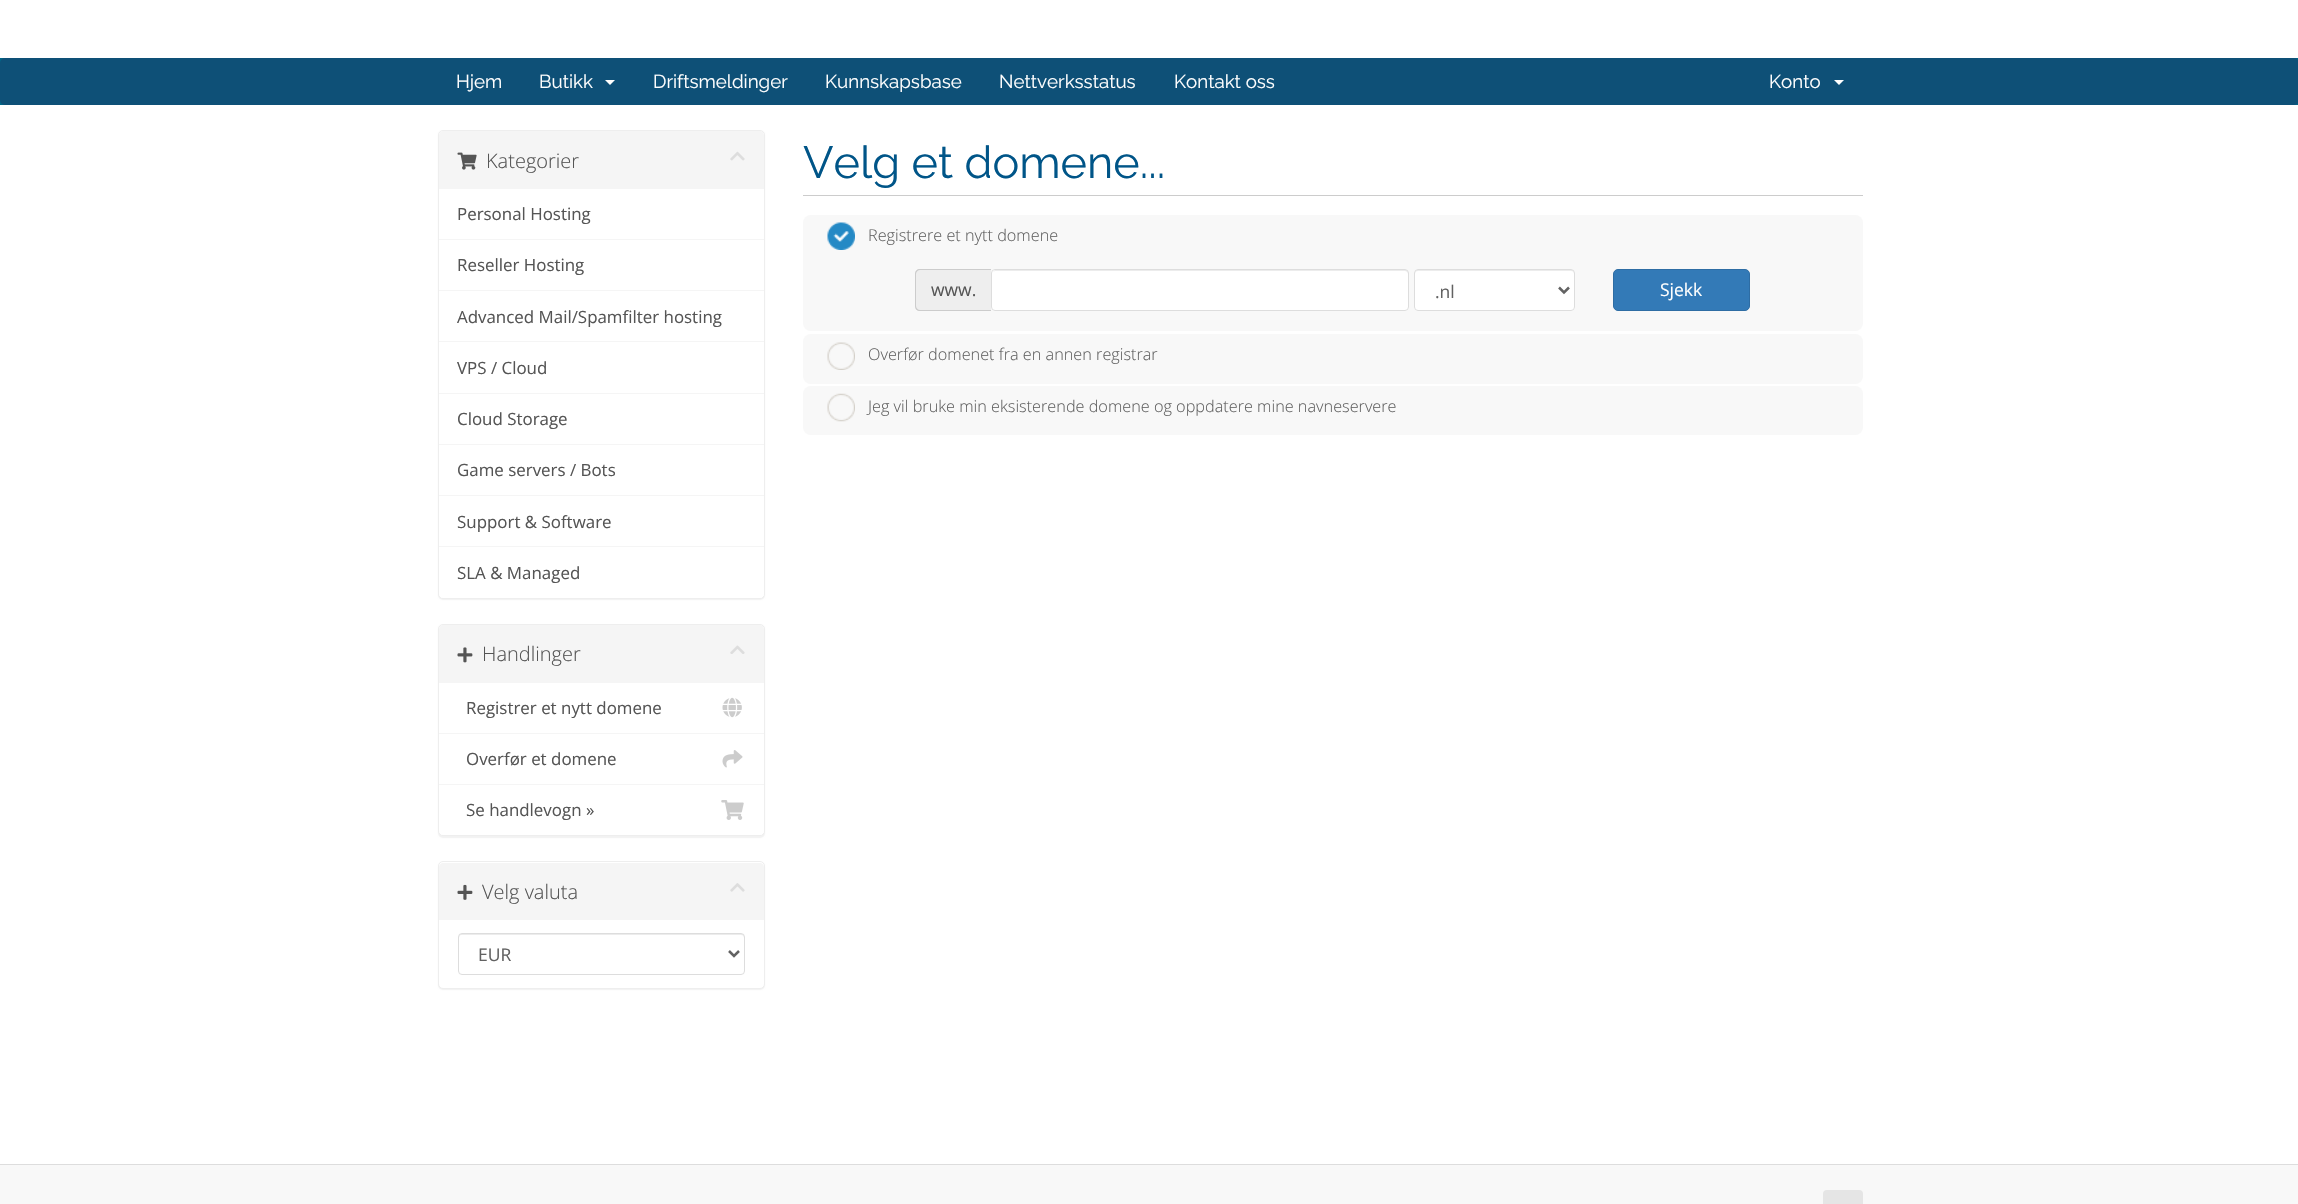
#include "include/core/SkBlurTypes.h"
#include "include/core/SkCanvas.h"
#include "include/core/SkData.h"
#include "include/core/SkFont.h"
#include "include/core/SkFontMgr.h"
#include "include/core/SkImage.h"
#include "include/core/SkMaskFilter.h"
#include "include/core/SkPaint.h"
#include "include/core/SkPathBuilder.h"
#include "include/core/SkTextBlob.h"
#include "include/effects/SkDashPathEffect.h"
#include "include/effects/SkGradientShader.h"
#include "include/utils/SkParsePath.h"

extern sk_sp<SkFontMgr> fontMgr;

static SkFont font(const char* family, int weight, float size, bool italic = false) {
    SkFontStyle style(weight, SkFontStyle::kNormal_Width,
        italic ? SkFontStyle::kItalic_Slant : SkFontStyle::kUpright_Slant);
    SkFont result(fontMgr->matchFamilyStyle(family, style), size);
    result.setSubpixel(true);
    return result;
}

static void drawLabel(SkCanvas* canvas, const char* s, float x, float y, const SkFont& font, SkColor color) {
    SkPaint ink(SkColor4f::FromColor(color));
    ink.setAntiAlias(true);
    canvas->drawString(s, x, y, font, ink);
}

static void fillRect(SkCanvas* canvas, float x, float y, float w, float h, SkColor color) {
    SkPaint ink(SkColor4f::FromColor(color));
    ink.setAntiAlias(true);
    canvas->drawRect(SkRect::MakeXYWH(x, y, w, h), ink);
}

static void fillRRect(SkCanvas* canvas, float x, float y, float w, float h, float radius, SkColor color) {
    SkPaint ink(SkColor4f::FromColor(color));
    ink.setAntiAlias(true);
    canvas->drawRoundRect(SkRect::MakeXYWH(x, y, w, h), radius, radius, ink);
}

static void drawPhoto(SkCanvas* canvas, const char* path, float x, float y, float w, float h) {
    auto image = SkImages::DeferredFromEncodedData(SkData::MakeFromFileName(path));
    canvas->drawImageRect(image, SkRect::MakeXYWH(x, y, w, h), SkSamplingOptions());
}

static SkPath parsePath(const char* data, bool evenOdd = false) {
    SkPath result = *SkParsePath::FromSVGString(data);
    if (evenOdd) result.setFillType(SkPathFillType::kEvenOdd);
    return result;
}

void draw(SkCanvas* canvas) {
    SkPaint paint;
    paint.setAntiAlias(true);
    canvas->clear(0xFFF8F8F8);
    fillRect(canvas, 0, 0, 2298, 58, 0xFFFFFFFF);
    fillRect(canvas, 0, 58, 2298, 47, 0xFF006687);
    fillRRect(canvas, 0, 58, 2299, 47, 5, 0xFF0E5077);
    SkFont font1 = font("Raleway", 400, 18.75f);
    drawLabel(canvas, "Hjem", 456, 88, font1, 0xFFFFFFFF);
    drawLabel(canvas, "Butikk", 539, 88, font1, 0xFFFFFFFF);
    paint.setColor(0xFFFFFFFF);
    canvas->drawPath(parsePath("M605 80H615L610 85Z"), paint);
    drawLabel(canvas, "Driftsmeldinger", 653, 88, font1, 0xFFFFFFFF);
    drawLabel(canvas, "Kunnskapsbase", 825, 88, font1, 0xFFFFFFFF);
    drawLabel(canvas, "Nettverksstatus", 999, 88, font1, 0xFFFFFFFF);
    drawLabel(canvas, "Kontakt oss", 1174, 88, font1, 0xFFFFFFFF);
    drawLabel(canvas, "Konto", 1769, 88, font1, 0xFFFFFFFF);
    canvas->drawPath(parsePath("M1834 80H1844L1839 85Z"), paint);
    fillRect(canvas, 0, 105, 2298, 1059, 0xFFFFFFFF);
    paint.setColor(0x0D000000);
    paint.setMaskFilter(SkMaskFilter::MakeBlur(kNormal_SkBlurStyle, 0.5f));
    canvas->drawRoundRect(SkRect::MakeXYWH(438, 131, 327, 469), 5, 5, paint);
    paint.setMaskFilter(nullptr);
    paint.setColor(0xFFFFFFFF);
    canvas->drawRoundRect(SkRect::MakeXYWH(438.5f, 130.5f, 326, 468), 4.5f, 4.5f, paint);
    paint.setStroke(true);
    paint.setStrokeWidth(1);
    paint.setColor(0xFFEEEEEE);
    canvas->drawRoundRect(SkRect::MakeXYWH(438.5f, 130.5f, 326, 468), 4.5f, 4.5f, paint);
    paint.setStroke(false);
    paint.setColor(0xFFF5F5F5);
    canvas->drawPath(parsePath("M443 131H760C762 131 764 133 764 135V189H439V135C439 133 441 131 443 131Z"), paint);
    drawPhoto(canvas, "assets/img1.png", 457, 152, 20, 18);
    SkFont font2 = font("Open Sans", 300, 20);
    drawLabel(canvas, "Kategorier", 486, 168, font2, 0xFF555555);
    drawPhoto(canvas, "assets/img2.png", 730, 151, 15, 10);
    fillRect(canvas, 439, 239, 325, 1, 0xFFF5F5F5);
    SkFont font3 = font("Open Sans", 400, 16.9f);
    drawLabel(canvas, "Personal Hosting", 457, 220, font3, 0xFF555555);
    fillRect(canvas, 439, 290, 325, 1, 0xFFF5F5F5);
    drawLabel(canvas, "Reseller Hosting", 457, 271, font3, 0xFF555555);
    fillRect(canvas, 439, 341, 325, 1, 0xFFF5F5F5);
    drawLabel(canvas, "Advanced Mail/Spamfilter hosting", 457, 323, font3, 0xFF555555);
    fillRect(canvas, 439, 393, 325, 1, 0xFFF5F5F5);
    drawLabel(canvas, "VPS / Cloud", 457, 374, font3, 0xFF555555);
    fillRect(canvas, 439, 444, 325, 1, 0xFFF5F5F5);
    drawLabel(canvas, "Cloud Storage", 457, 425, font3, 0xFF555555);
    fillRect(canvas, 439, 495, 325, 1, 0xFFF5F5F5);
    drawLabel(canvas, "Game servers / Bots", 457, 476, font3, 0xFF555555);
    fillRect(canvas, 439, 546, 325, 1, 0xFFF5F5F5);
    drawLabel(canvas, "Support & Software", 457, 528, font3, 0xFF555555);
    paint.setColor(0xFFFFFFFF);
    canvas->drawPath(parsePath("M439 548H764V594C764 596 762 598 760 598H443C441 598 439 596 439 594Z"), paint);
    drawLabel(canvas, "SLA & Managed", 457, 579, font3, 0xFF555555);
    paint.setColor(0x0D000000);
    paint.setMaskFilter(SkMaskFilter::MakeBlur(kNormal_SkBlurStyle, 0.5f));
    canvas->drawRoundRect(SkRect::MakeXYWH(438, 625, 327, 213), 5, 5, paint);
    paint.setMaskFilter(nullptr);
    paint.setColor(0xFFFFFFFF);
    canvas->drawRoundRect(SkRect::MakeXYWH(438.5f, 624.5f, 326, 211), 4.5f, 4.5f, paint);
    paint.setStroke(true);
    paint.setColor(0xFFEEEEEE);
    canvas->drawRoundRect(SkRect::MakeXYWH(438.5f, 624.5f, 326, 211), 4.5f, 4.5f, paint);
    paint.setStroke(false);
    paint.setColor(0xFFF5F5F5);
    canvas->drawPath(parsePath("M443 625H760C762 625 764 627 764 629V683H439V629C439 627 441 625 443 625Z"), paint);
    drawPhoto(canvas, "assets/img3.png", 457, 647, 16, 16);
    drawLabel(canvas, "Handlinger", 482, 661, font2, 0xFF555555);
    drawPhoto(canvas, "assets/img4.png", 730, 645, 15, 9);
    fillRect(canvas, 439, 733, 325, 1, 0xFFF5F5F5);
    drawLabel(canvas, "Registrer et nytt domene", 466, 714, font3, 0xFF555555);
    drawPhoto(canvas, "assets/img5.png", 722, 697, 20, 21);
    fillRect(canvas, 439, 784, 325, 1, 0xFFF5F5F5);
    drawLabel(canvas, "Overfør et domene", 466, 765, font3, 0xFF555555);
    drawPhoto(canvas, "assets/img6.png", 722, 750, 21, 18);
    paint.setColor(0xFFFFFFFF);
    canvas->drawPath(parsePath("M439 785H764V831C764 833 762 835 760 835H443C441 835 439 833 439 831Z"), paint);
    drawLabel(canvas, "Se handlevogn »", 466, 816, font3, 0xFF555555);
    drawPhoto(canvas, "assets/img7.png", 721, 800, 23, 20);
    paint.setColor(0x0D000000);
    paint.setMaskFilter(SkMaskFilter::MakeBlur(kNormal_SkBlurStyle, 0.5f));
    canvas->drawRoundRect(SkRect::MakeXYWH(438, 863, 327, 127), 5, 5, paint);
    paint.setMaskFilter(nullptr);
    paint.setColor(0xFFFFFFFF);
    canvas->drawRoundRect(SkRect::MakeXYWH(438.5f, 861.5f, 326, 127), 4.5f, 4.5f, paint);
    paint.setStroke(true);
    paint.setColor(0xFFEEEEEE);
    canvas->drawRoundRect(SkRect::MakeXYWH(438.5f, 861.5f, 326, 127), 4.5f, 4.5f, paint);
    paint.setStroke(false);
    paint.setColor(0xFFF5F5F5);
    canvas->drawPath(parsePath("M443 863H760C762 863 764 865 764 867V920H439V867C439 865 441 863 443 863Z"), paint);
    drawPhoto(canvas, "assets/img8.png", 457, 884, 16, 16);
    drawLabel(canvas, "Velg valuta", 482, 899, font2, 0xFF555555);
    drawPhoto(canvas, "assets/img9.png", 730, 883, 15, 9);
    paint.setColor(0xFFECECEC);
    canvas->drawPath(parsePath("M461 935H741C743 935 744 936 744 938C744 936 744 934 742 934H462C459 934 459 936 459 938C459 936 460 935 461 935Z"), paint);
    paint.setStroke(true);
    paint.setColor(0xFFDDDDDD);
    canvas->drawRoundRect(SkRect::MakeXYWH(458.5f, 933.5f, 286, 41), 3.5f, 3.5f, paint);
    paint.setStrokeWidth(2.5f);
    paint.setColor(0xFF626262);
    canvas->drawPath(parsePath("M729 951L734 956L739 951"), paint);
    SkFont font4 = font("Open Sans", 400, 17.5f);
    drawLabel(canvas, "EUR", 478, 961, font4, 0xFF626262);
    fillRect(canvas, 803, 195, 1060, 1, 0xFFCCCCCC);
    SkFont font5 = font("Raleway", 400, 45);
    drawLabel(canvas, "Velg et domene...", 803, 178, font5, 0xFF005588);
    fillRRect(canvas, 803, 215, 1060, 116, 8, 0xFFF8F8F8);
    drawPhoto(canvas, "assets/img10.png", 827, 222, 28, 28);
    SkFont font6 = font("Open Sans", 300, 16.25f);
    drawLabel(canvas, "Registrere et nytt domene", 868, 241, font6, 0xFF626262);
    paint.setStroke(false);
    paint.setColor(0xFFEEEEEE);
    canvas->drawPath(parsePath("M920 269H991V311H920C917 311 915 309 915 306V274C915 271 917 269 920 269Z"), paint);
    paint.setColor(0xFFCCCCCC);
    canvas->drawPath(parsePath("M920 269H991V311H920C917 311 915 309 915 306V274C915 271 917 269 920 269ZM920 270H991V310H920C918 310 916 308 916 306V274C916 272 918 270 920 270Z", true), paint);
    drawLabel(canvas, "www.", 931, 296, font4, 0xFF555555);
    fillRRect(canvas, 991, 269, 418, 42, 4, 0xFFFFFFFF);
    paint.setColor(0xFFECECEC);
    canvas->drawPath(parsePath("M995 271H1405C1406 271 1408 272 1408 274C1408 272 1408 270 1406 270H995L993 272Z"), paint);
    paint.setStroke(true);
    paint.setStrokeWidth(1);
    paint.setColor(0xFFDDDDDD);
    canvas->drawRoundRect(SkRect::MakeXYWH(991.5f, 269.5f, 417, 41), 3.5f, 3.5f, paint);
    fillRRect(canvas, 1414, 269, 161, 42, 4, 0xFFFFFFFF);
    paint.setStroke(false);
    paint.setColor(0xFFECECEC);
    canvas->drawPath(parsePath("M1418 271H1571C1573 271 1574 272 1574 274C1574 272 1574 270 1572 270H1418C1415 270 1415 272 1415 274C1415 272 1416 271 1418 271Z"), paint);
    paint.setStroke(true);
    paint.setColor(0xFFDDDDDD);
    canvas->drawRoundRect(SkRect::MakeXYWH(1414.5f, 269.5f, 160, 41), 3.5f, 3.5f, paint);
    paint.setStrokeWidth(2.5f);
    paint.setColor(0xFF626262);
    canvas->drawPath(parsePath("M1559 287.5L1564 292.5L1569 287.5"), paint);
    drawLabel(canvas, ".nl", 1435, 298, font4, 0xFF626262);
    paint.setStroke(false);
    paint.setColor(0xFF337AB7);
    canvas->drawRoundRect(SkRect::MakeXYWH(1613.5f, 269.5f, 136, 41), 4.5f, 4.5f, paint);
    paint.setStroke(true);
    paint.setStrokeWidth(1);
    paint.setColor(0xFF2E6DA4);
    canvas->drawRoundRect(SkRect::MakeXYWH(1613.5f, 269.5f, 136, 41), 4.5f, 4.5f, paint);
    drawLabel(canvas, "Sjekk", 1660, 296, font4, 0xFFFFFFFF);
    fillRRect(canvas, 803, 334, 1060, 50, 8, 0xFFF8F8F8);
    drawPhoto(canvas, "assets/img11.png", 827, 342, 28, 28);
    drawLabel(canvas, "Overfør domenet fra en annen registrar", 868, 360, font6, 0xFF626262);
    fillRRect(canvas, 803, 386, 1060, 49, 8, 0xFFF8F8F8);
    drawPhoto(canvas, "assets/img12.png", 827, 393, 28, 29);
    drawLabel(canvas, "Jeg vil bruke min eksisterende domene og oppdatere mine navneservere", 868, 412, font6, 0xFF626262);
    fillRect(canvas, 0, 1164, 2298, 1, 0xFFDDDDDD);
    fillRRect(canvas, 1823, 1190, 40, 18, 4, 0xFFE5E5E5);
}
